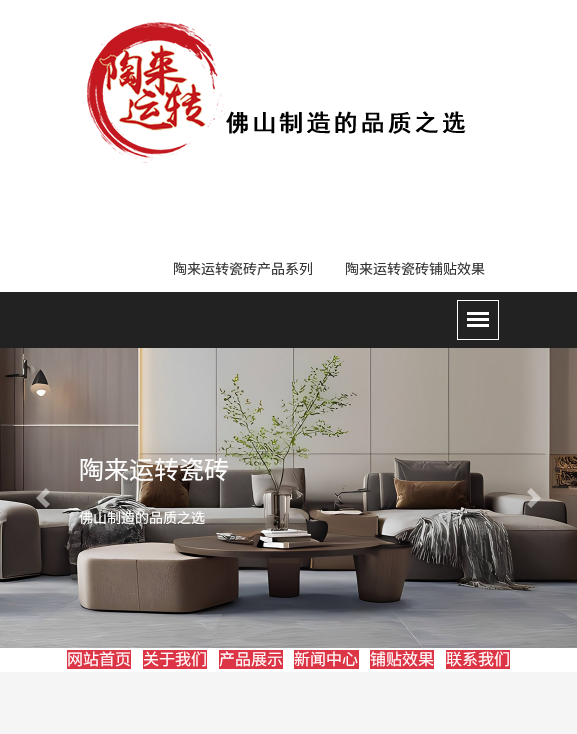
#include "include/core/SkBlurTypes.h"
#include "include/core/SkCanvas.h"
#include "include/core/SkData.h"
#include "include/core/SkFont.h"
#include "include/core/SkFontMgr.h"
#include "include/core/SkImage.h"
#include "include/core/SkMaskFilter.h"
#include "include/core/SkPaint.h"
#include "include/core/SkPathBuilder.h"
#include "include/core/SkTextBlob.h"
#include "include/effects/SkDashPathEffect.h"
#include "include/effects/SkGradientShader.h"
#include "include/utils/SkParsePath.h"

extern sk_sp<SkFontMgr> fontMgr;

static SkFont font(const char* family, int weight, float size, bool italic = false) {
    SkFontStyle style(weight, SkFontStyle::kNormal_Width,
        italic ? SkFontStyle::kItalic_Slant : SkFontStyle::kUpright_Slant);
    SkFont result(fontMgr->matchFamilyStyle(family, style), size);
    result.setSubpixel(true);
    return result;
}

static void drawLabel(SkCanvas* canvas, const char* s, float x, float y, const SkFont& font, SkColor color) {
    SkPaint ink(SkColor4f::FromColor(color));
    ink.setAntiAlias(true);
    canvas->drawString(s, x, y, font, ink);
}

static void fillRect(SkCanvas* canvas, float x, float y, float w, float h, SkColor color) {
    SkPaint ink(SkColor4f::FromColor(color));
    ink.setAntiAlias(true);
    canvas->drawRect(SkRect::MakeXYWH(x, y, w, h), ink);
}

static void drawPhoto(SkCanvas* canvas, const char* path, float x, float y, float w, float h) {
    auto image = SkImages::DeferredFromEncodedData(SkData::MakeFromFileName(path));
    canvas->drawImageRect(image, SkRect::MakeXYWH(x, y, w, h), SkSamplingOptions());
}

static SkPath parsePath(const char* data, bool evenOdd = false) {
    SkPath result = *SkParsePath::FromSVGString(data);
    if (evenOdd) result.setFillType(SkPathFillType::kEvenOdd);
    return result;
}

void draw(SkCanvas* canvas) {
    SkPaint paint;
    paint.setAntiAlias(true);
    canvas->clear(0xFFFFFFFF);
    drawPhoto(canvas, "assets/img1.png", 87, 20, 379, 143);
    SkFont font1 = font("Noto Sans CJK SC", 400, 14);
    drawLabel(canvas, "陶来运转瓷砖产品系列", 173, 274, font1, 0xFF333333);
    drawLabel(canvas, "陶来运转瓷砖铺贴效果", 345, 274, font1, 0xFF333333);
    fillRect(canvas, 0, 292, 577, 56, 0xFF222222);
    paint.setStroke(true);
    paint.setStrokeWidth(1);
    paint.setColor(0xFFFFFFFF);
    canvas->drawRect(SkRect::MakeXYWH(457.5f, 300.5f, 41, 39), paint);
    fillRect(canvas, 467, 312, 22, 3, 0xFFFFFFFF);
    fillRect(canvas, 467, 318, 22, 3, 0xFFFFFFFF);
    fillRect(canvas, 467, 324, 22, 3, 0xFFFFFFFF);
    drawPhoto(canvas, "assets/img2.png", 0, 348, 577, 300);
    paint.setStroke(false);
    paint.setColor(0x80FFFFFF);
    canvas->drawPath(parsePath("M46 488L36 498L46 508L50 504L43.5 498L50 492Z"), paint);
    SkFont font2 = font("Noto Sans CJK SC", 400, 25);
    drawLabel(canvas, "陶来运转瓷砖", 79, 479, font2, 0xFFFFFFFF);
    drawLabel(canvas, "佛山制造的品质之选", 79, 523, font1, 0xFFFFFFFF);
    canvas->drawPath(parsePath("M531 488L527 492L533.5 498L527 504L531 508L541 498Z"), paint);
    fillRect(canvas, 67, 650, 64, 19, 0xFFDC3545);
    SkFont font3 = font("Noto Sans CJK SC", 400, 16);
    drawLabel(canvas, "网站首页", 67, 665, font3, 0xFFFFFFFF);
    fillRect(canvas, 143, 650, 64, 19, 0xFFDC3545);
    drawLabel(canvas, "关于我们", 143, 665, font3, 0xFFFFFFFF);
    fillRect(canvas, 219, 650, 64, 19, 0xFFDC3545);
    drawLabel(canvas, "产品展示", 219, 665, font3, 0xFFFFFFFF);
    fillRect(canvas, 294, 650, 65, 19, 0xFFDC3545);
    drawLabel(canvas, "新闻中心", 294, 665, font3, 0xFFFFFFFF);
    fillRect(canvas, 370, 650, 64, 19, 0xFFDC3545);
    drawLabel(canvas, "铺贴效果", 370, 665, font3, 0xFFFFFFFF);
    fillRect(canvas, 446, 650, 64, 19, 0xFFDC3545);
    drawLabel(canvas, "联系我们", 446, 665, font3, 0xFFFFFFFF);
    fillRect(canvas, 0, 672, 577, 62, 0xFFF5F5F5);
}
